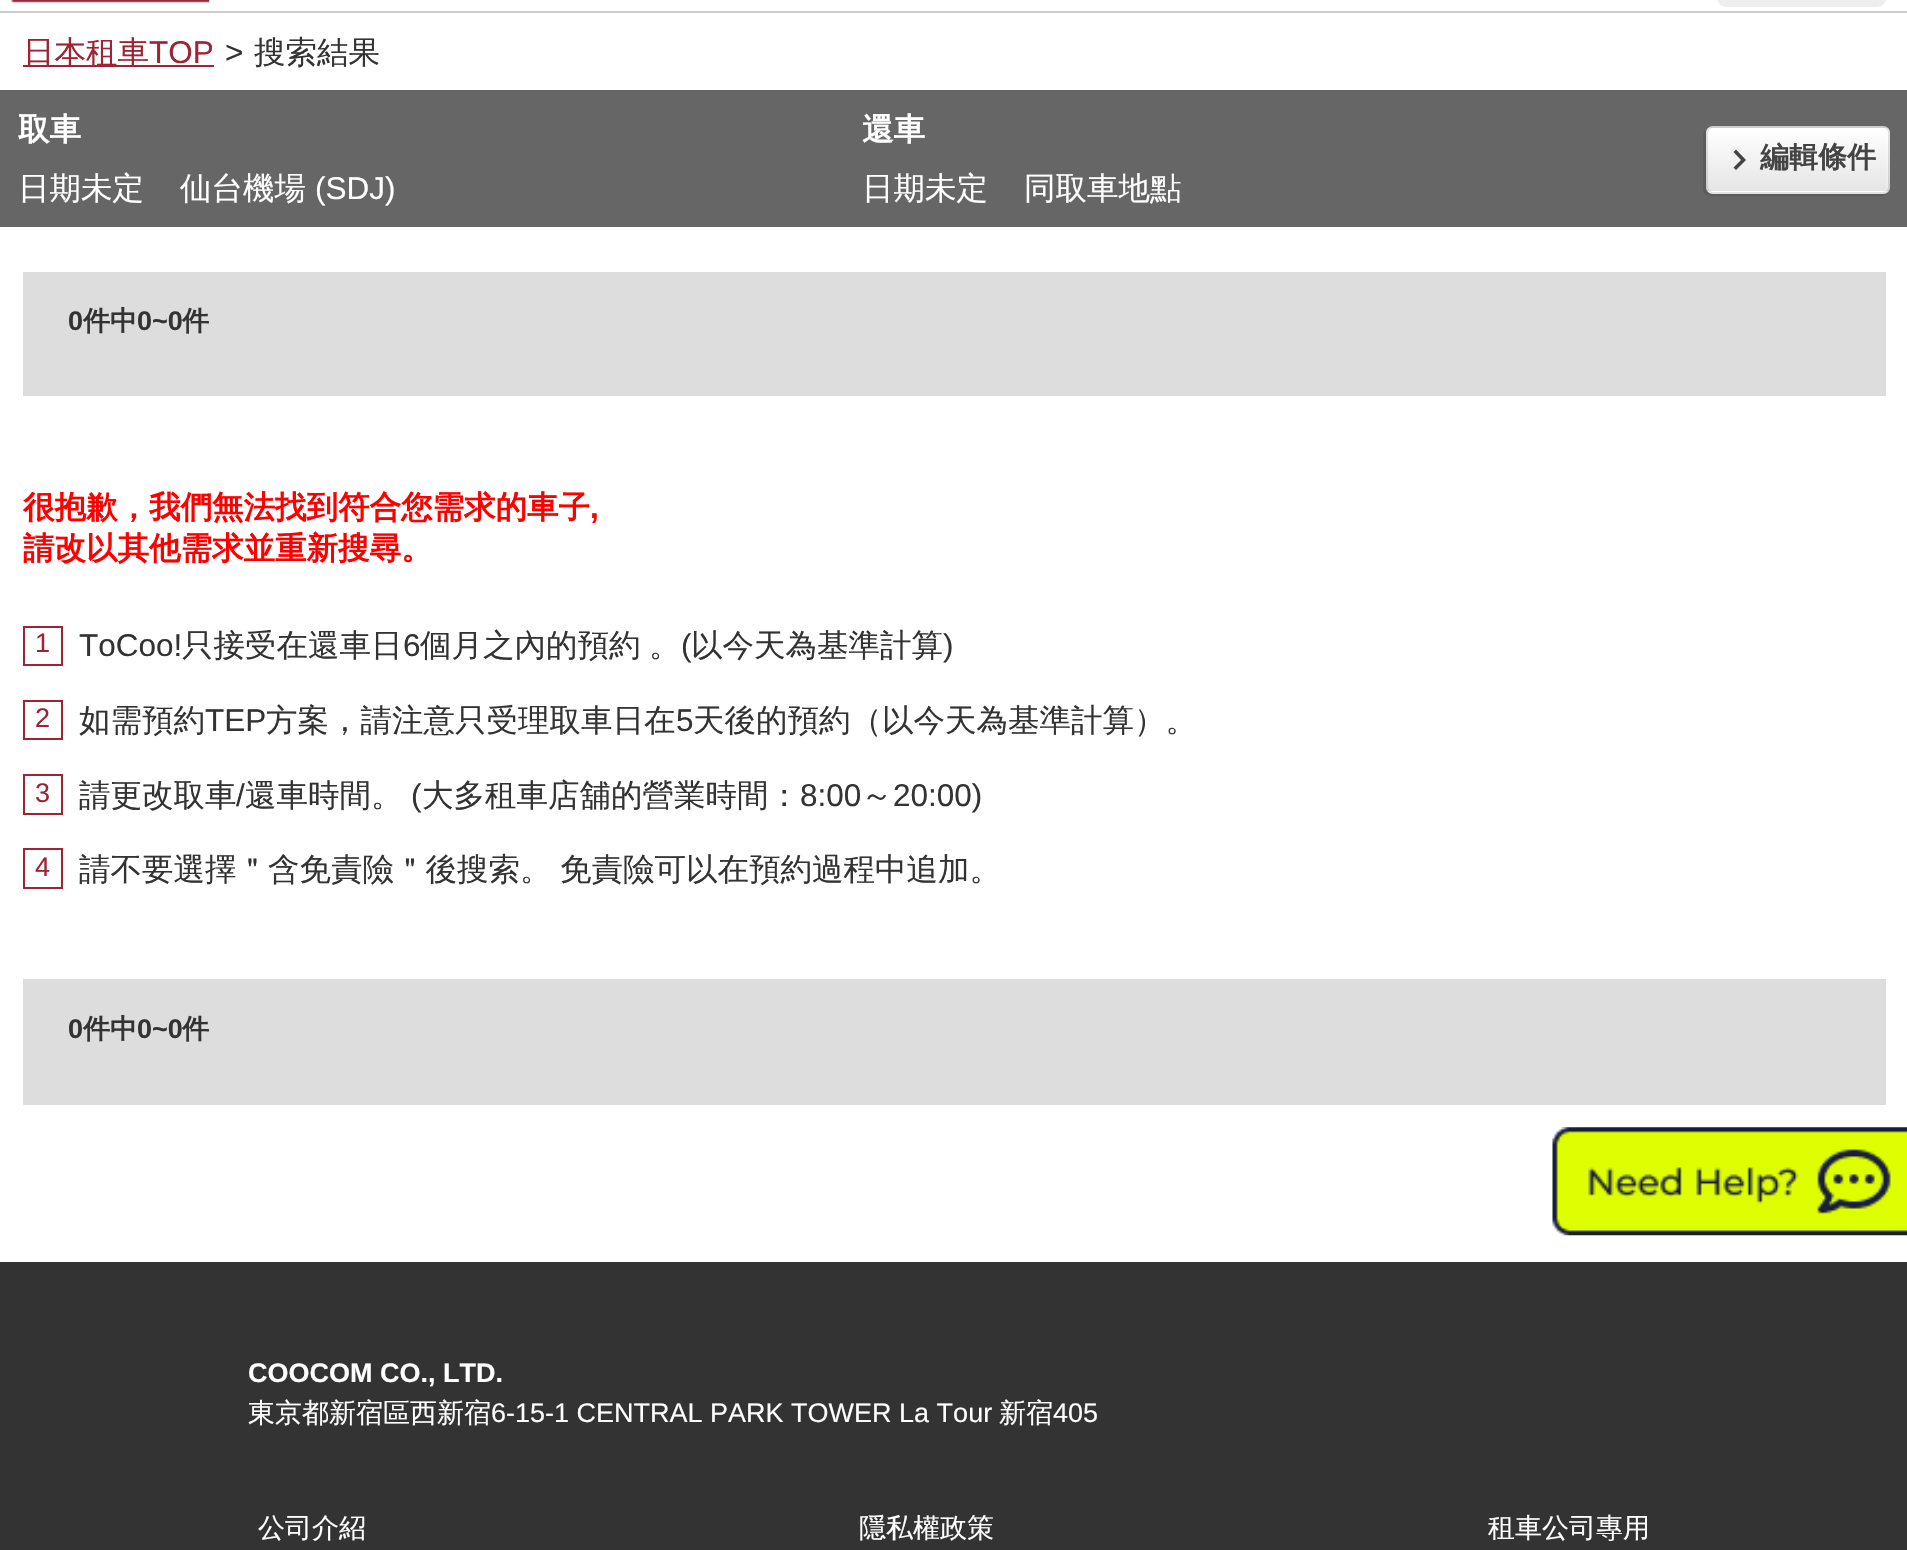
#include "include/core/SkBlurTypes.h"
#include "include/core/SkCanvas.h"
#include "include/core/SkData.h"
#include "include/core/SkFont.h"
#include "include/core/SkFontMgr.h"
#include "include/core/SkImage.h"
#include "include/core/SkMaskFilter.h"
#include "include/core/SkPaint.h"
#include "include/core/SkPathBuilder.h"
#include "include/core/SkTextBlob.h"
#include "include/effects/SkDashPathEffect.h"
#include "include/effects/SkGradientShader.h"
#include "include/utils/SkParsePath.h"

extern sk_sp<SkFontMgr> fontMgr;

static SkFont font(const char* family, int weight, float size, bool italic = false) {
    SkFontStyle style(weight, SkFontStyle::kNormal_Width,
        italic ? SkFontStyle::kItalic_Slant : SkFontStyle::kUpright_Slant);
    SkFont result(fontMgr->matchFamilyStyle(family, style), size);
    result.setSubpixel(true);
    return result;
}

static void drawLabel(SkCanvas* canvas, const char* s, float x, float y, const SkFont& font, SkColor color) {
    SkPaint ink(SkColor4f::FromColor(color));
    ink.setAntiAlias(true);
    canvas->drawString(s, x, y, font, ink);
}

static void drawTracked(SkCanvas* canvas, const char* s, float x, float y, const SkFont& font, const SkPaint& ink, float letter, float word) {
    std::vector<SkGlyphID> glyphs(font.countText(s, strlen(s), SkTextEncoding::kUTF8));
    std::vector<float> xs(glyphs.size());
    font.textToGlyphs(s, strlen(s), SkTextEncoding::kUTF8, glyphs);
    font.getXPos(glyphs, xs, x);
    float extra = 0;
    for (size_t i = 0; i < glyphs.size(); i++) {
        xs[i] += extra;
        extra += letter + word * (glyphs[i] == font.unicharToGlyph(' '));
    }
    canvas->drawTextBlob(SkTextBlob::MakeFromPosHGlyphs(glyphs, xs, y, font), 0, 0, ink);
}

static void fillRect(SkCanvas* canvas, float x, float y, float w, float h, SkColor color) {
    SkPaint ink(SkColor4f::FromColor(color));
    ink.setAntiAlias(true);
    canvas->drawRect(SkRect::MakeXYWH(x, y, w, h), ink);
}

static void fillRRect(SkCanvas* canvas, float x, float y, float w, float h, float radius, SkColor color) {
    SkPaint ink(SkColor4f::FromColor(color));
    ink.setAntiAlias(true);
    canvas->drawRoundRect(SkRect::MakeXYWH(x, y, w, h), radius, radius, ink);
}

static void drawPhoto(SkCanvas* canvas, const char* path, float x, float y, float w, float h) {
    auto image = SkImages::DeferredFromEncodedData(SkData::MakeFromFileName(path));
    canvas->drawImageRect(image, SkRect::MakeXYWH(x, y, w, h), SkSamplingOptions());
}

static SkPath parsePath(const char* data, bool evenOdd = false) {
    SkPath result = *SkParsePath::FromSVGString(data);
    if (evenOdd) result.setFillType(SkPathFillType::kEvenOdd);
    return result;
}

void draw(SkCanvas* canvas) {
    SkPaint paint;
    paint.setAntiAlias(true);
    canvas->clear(0xFFFFFFFF);
    fillRRect(canvas, 1717, -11, 169, 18, 11, 0xFFEEEEEE);
    fillRect(canvas, 0, 11, 1907, 2, 0xFFCCCCCC);
    drawPhoto(canvas, "assets/img1.png", 11, 0, 199, 3);
    fillRect(canvas, 23, 65, 191, 2, 0xFF9E2334);
    SkFont font1 = font("WenQuanYi Zen Hei", 500, 31.5f);
    drawLabel(canvas, "日本租車", 23, 63, font1, 0xFF9E2334);
    SkFont font2 = font("Liberation Sans", 400, 31.5f);
    drawLabel(canvas, "TOP", 149, 63, font2, 0xFF9E2334);
    drawLabel(canvas, ">", 225, 63, font2, 0xFF333333);
    drawLabel(canvas, "搜索結果", 254, 63, font1, 0xFF333333);
    fillRect(canvas, 0, 90, 1907, 137, 0xFF666666);
    SkFont font3 = font("WenQuanYi Zen Hei", 700, 31.5f);
    drawLabel(canvas, "取車", 18, 140, font3, 0xFFFFFFFF);
    drawLabel(canvas, "日期未定", 18, 199, font1, 0xFFFFFFFF);
    drawLabel(canvas, "仙台機場", 180, 199, font1, 0xFFFFFFFF);
    drawLabel(canvas, "(SDJ)", 315, 199, font2, 0xFFFFFFFF);
    drawLabel(canvas, "還車", 862, 140, font3, 0xFFFFFFFF);
    drawLabel(canvas, "日期未定", 862, 199, font1, 0xFFFFFFFF);
    drawLabel(canvas, "同取車地點", 1024, 199, font1, 0xFFFFFFFF);
    paint.setColor(0xFF5C5C5C);
    canvas->drawPath(parsePath("M1707 129C1705 130 1703 132 1703 135V189C1703 193 1706 196 1710 196H1881C1884 196 1886 194 1887 192C1886 193 1885 194 1883 194H1712C1709 194 1706 190 1706 187V133C1706 131 1706 130 1707 129Z"), paint);
    canvas->save();
    canvas->clipPath(parsePath("M1713 126H1883C1887 126 1890 129 1890 133V187C1890 191 1887 194 1883 194H1713C1709 194 1706 191 1706 187V133C1706 129 1709 126 1713 126Z"), true);
    {
        const SkColor colors[] = {0xFFFFFFFF, 0xFFE5E5E5};
        const float stops[] = {0, 1};
        const SkPoint ends[] = {{1798, 65}, {1798, 128}};
        paint.setShader(SkGradientShader::MakeLinear(ends, colors, stops, 2, SkTileMode::kClamp));
        paint.setAlpha(255);
    }
    canvas->drawRect(SkRect::MakeXYWH(1706, 126, 184, 2), paint);
    {
        const SkColor colors[] = {0xFFFFFFFF, 0xFFE5E5E5};
        const float stops[] = {0, 1};
        const SkPoint ends[] = {{1798, 128}, {1798, 191}};
        paint.setShader(SkGradientShader::MakeLinear(ends, colors, stops, 2, SkTileMode::kClamp));
        paint.setAlpha(255);
    }
    canvas->drawRect(SkRect::MakeXYWH(1706, 128, 184, 63), paint);
    {
        const SkColor colors[] = {0xFFFFFFFF, 0xFFE5E5E5};
        const float stops[] = {0, 1};
        const SkPoint ends[] = {{1798, 191}, {1798, 254}};
        paint.setShader(SkGradientShader::MakeLinear(ends, colors, stops, 2, SkTileMode::kClamp));
        paint.setAlpha(255);
    }
    canvas->drawRect(SkRect::MakeXYWH(1706, 191, 184, 3), paint);
    canvas->restore();
    paint.setShader(nullptr);
    paint.setColor(0x33FFFFFF);
    canvas->drawPath(parsePath("M1710 130H1852C1857 130 1883 125 1886 134V190C1887 189 1888 188 1888 186V133C1888 130 1886 128 1883 128H1713C1711 128 1710 129 1709 130Z"), paint);
    paint.setStroke(true);
    paint.setStrokeWidth(2);
    paint.setColor(0x1A000000);
    canvas->drawRoundRect(SkRect::MakeXYWH(1707, 127, 182, 66), 6, 6, paint);
    paint.setStroke(false);
    paint.setColor(0xFF444444);
    canvas->drawPath(parsePath("M1733.5 167.5L1741 160L1733.5 152L1736 149.5L1746 160L1736 170Z"), paint);
    SkFont font4 = font("WenQuanYi Zen Hei", 700, 29);
    drawLabel(canvas, "編輯條件", 1760, 167, font4, 0xFF444444);
    fillRect(canvas, 23, 272, 1863, 124, 0xFFDDDDDD);
    SkFont font5 = font("Liberation Sans", 700, 27);
    drawLabel(canvas, "0", 68, 330, font5, 0xFF333333);
    SkFont font6 = font("WenQuanYi Zen Hei", 700, 27);
    drawLabel(canvas, "件中", 83, 330, font6, 0xFF333333);
    drawLabel(canvas, "0~0", 137, 330, font5, 0xFF333333);
    drawLabel(canvas, "件", 182, 330, font6, 0xFF333333);
    drawLabel(canvas, "很抱歉，我們無法找到符合您需求的車子", 23, 518, font3, 0xFFFF0000);
    SkFont font7 = font("Liberation Sans", 700, 31.5f);
    drawLabel(canvas, ",", 590, 518, font7, 0xFFFF0000);
    drawLabel(canvas, "請改以其他需求並重新搜尋。", 23, 559, font3, 0xFFFF0000);
    paint.setStroke(true);
    paint.setColor(0xFF9E2334);
    canvas->drawRect(SkRect::MakeXYWH(24, 627, 38, 38), paint);
    SkFont font8 = font("Liberation Sans", 400, 27);
    drawLabel(canvas, "1", 35, 652, font8, 0xFF9E2334);
    drawLabel(canvas, "ToCoo!", 79, 656, font2, 0xFF333333);
    drawLabel(canvas, "只接受在還車日", 182, 656, font1, 0xFF333333);
    drawLabel(canvas, "6", 403, 656, font2, 0xFF333333);
    paint.setStroke(false);
    paint.setColor(0xFF333333);
    drawTracked(canvas, "個月之內的預約 。", 420, 656, font1, paint, 0, -1);
    drawLabel(canvas, "(", 681, 656, font2, 0xFF333333);
    drawLabel(canvas, "以今天為基準計算", 691, 656, font1, 0xFF333333);
    drawLabel(canvas, ")", 943, 656, font2, 0xFF333333);
    paint.setStroke(true);
    paint.setColor(0xFF9E2334);
    canvas->drawRect(SkRect::MakeXYWH(24, 701, 38, 38), paint);
    drawLabel(canvas, "2", 35, 727, font8, 0xFF9E2334);
    drawLabel(canvas, "如需預約", 79, 731, font1, 0xFF333333);
    drawLabel(canvas, "TEP", 205, 731, font2, 0xFF333333);
    drawLabel(canvas, "方案，請注意只受理取車日在", 266, 731, font1, 0xFF333333);
    drawLabel(canvas, "5", 676, 731, font2, 0xFF333333);
    drawLabel(canvas, "天後的預約（以今天為基準計算）。", 693, 731, font1, 0xFF333333);
    canvas->drawRect(SkRect::MakeXYWH(24, 775, 38, 39), paint);
    drawLabel(canvas, "3", 35, 802, font8, 0xFF9E2334);
    drawLabel(canvas, "請更改取車", 79, 806, font1, 0xFF333333);
    drawLabel(canvas, "/", 236, 806, font2, 0xFF333333);
    drawLabel(canvas, "還車時間。", 245, 806, font1, 0xFF333333);
    drawLabel(canvas, "(", 411, 806, font2, 0xFF333333);
    drawLabel(canvas, "大多租車店舖的營業時間：", 422, 806, font1, 0xFF333333);
    drawLabel(canvas, "8:00", 800, 806, font2, 0xFF333333);
    drawLabel(canvas, "～", 861, 806, font1, 0xFF333333);
    drawLabel(canvas, "20:00)", 893, 806, font2, 0xFF333333);
    canvas->drawRect(SkRect::MakeXYWH(24, 849, 38, 39), paint);
    drawLabel(canvas, "4", 35, 876, font8, 0xFF9E2334);
    drawLabel(canvas, "請不要選擇＂含免責險＂後搜索。", 79, 880, font1, 0xFF333333);
    drawLabel(canvas, "免責險可以在預約過程中追加。", 560, 880, font1, 0xFF333333);
    fillRect(canvas, 23, 979, 1863, 126, 0xFFDDDDDD);
    drawLabel(canvas, "0", 68, 1038, font5, 0xFF333333);
    drawLabel(canvas, "件中", 83, 1038, font6, 0xFF333333);
    drawLabel(canvas, "0~0", 137, 1038, font5, 0xFF333333);
    drawLabel(canvas, "件", 182, 1038, font6, 0xFF333333);
    drawPhoto(canvas, "assets/img2.png", 1552, 1127, 355, 109);
    fillRect(canvas, 0, 1262, 1907, 288, 0xFF333333);
    drawLabel(canvas, "COOCOM CO., LTD.", 248, 1382, font5, 0xFFFFFFFF);
    SkFont font9 = font("WenQuanYi Zen Hei", 500, 27);
    drawLabel(canvas, "東京都新宿區西新宿", 248, 1422, font9, 0xFFFFFFFF);
    drawLabel(canvas, "6-15-1 CENTRAL PARK TOWER La Tour", 491, 1422, font8, 0xFFFFFFFF);
    drawLabel(canvas, "新宿", 999, 1422, font9, 0xFFFFFFFF);
    drawLabel(canvas, "405", 1053, 1422, font8, 0xFFFFFFFF);
    drawLabel(canvas, "公司介紹", 258, 1537, font9, 0xFFFFFFFF);
    drawLabel(canvas, "隱私權政策", 859, 1537, font9, 0xFFFFFFFF);
    drawLabel(canvas, "租車公司專用", 1488, 1537, font9, 0xFFFFFFFF);
}
